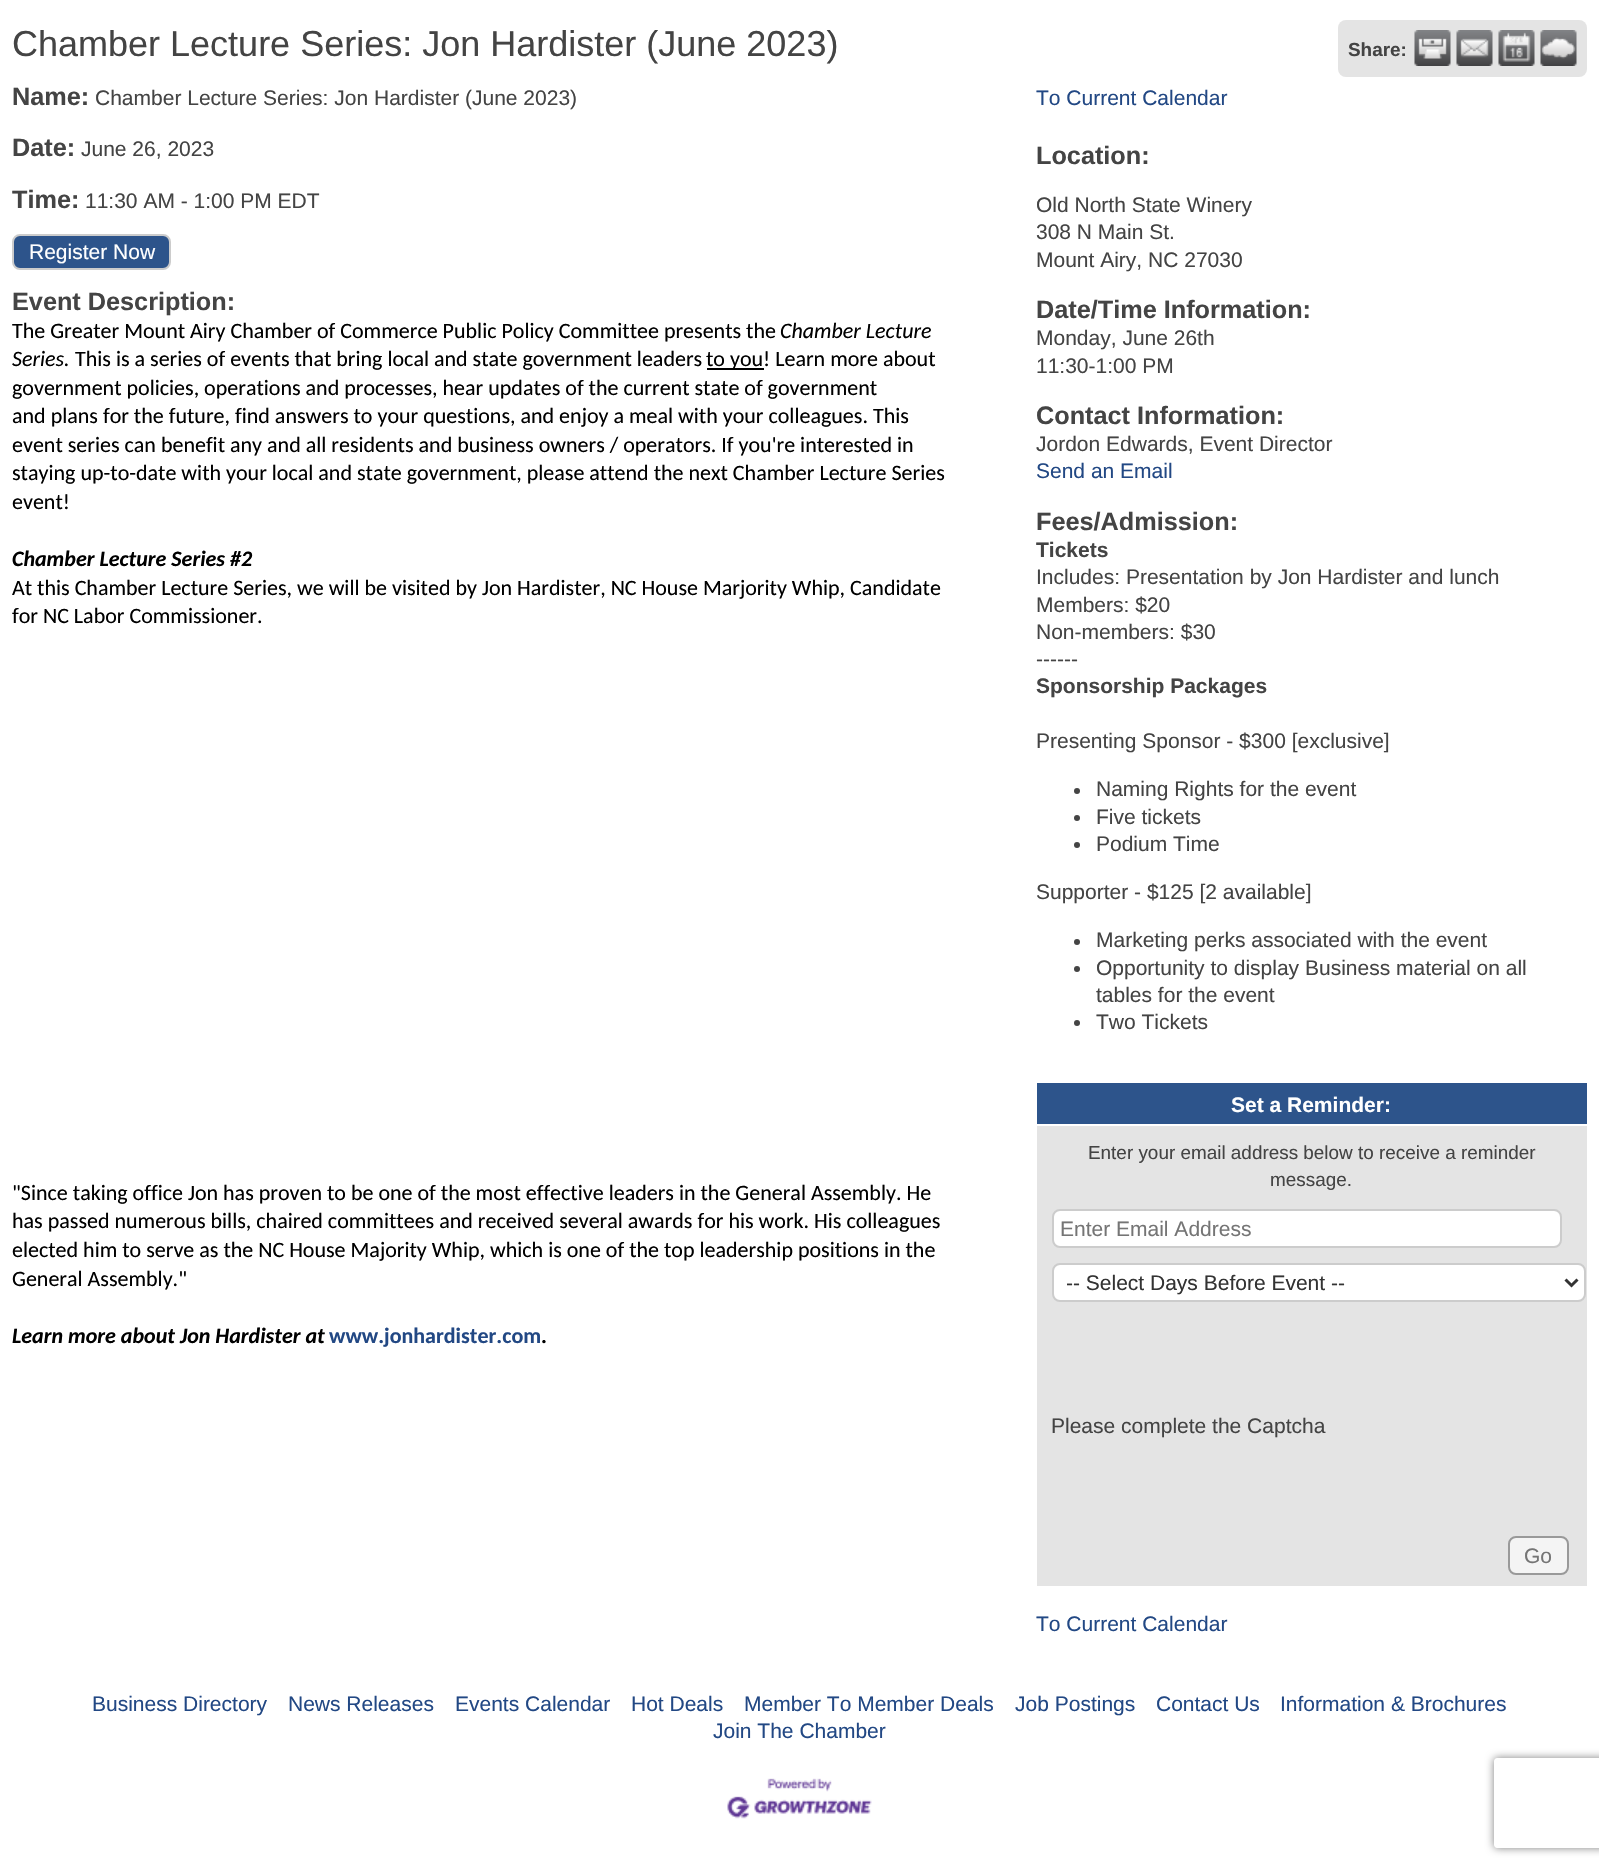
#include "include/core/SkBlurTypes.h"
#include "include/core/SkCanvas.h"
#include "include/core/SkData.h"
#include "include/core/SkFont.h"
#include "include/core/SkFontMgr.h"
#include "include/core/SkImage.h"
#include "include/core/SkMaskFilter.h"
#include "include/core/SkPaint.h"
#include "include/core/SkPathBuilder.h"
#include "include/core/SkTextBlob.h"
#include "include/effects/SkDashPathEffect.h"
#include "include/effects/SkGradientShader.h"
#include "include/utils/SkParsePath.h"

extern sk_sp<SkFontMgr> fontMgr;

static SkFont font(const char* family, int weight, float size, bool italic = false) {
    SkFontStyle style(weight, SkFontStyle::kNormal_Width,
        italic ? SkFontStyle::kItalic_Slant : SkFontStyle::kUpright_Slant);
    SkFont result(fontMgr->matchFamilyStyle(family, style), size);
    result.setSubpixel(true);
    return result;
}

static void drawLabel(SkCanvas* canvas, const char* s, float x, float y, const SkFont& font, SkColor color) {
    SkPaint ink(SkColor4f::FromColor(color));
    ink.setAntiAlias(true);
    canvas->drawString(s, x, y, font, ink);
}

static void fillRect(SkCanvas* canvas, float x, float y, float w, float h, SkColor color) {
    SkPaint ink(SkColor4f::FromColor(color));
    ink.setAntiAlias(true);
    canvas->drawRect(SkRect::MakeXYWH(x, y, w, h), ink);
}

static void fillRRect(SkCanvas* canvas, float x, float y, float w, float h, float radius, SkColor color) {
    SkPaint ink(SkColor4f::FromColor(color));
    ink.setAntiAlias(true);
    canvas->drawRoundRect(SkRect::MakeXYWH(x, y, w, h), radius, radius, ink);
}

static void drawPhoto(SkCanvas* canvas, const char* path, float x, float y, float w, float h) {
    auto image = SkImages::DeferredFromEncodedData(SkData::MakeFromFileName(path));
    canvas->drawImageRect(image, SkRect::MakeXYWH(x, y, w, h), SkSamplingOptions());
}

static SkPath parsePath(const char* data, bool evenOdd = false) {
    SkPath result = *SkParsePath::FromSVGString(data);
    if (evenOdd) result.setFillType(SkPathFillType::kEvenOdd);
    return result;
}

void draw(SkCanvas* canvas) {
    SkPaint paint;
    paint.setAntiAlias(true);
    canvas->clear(0xFFFFFFFF);
    SkFont font1 = font("Liberation Sans", 400, 36);
    drawLabel(canvas, "Chamber Lecture Series: Jon Hardister (June 2023)", 12, 56, font1, 0xFF444444);
    fillRRect(canvas, 1338, 20, 249, 57, 8, 0xFFE4E4E4);
    SkFont font2 = font("Liberation Sans", 700, 18.9f);
    drawLabel(canvas, "Share:", 1348, 56, font2, 0xFF444444);
    drawPhoto(canvas, "assets/img1.png", 1414, 30, 37, 36);
    drawPhoto(canvas, "assets/img2.png", 1456, 30, 37, 36);
    drawPhoto(canvas, "assets/img3.png", 1498, 30, 37, 36);
    drawPhoto(canvas, "assets/img4.png", 1540, 30, 37, 36);
    SkFont font3 = font("Liberation Sans", 700, 25.25f);
    drawLabel(canvas, "Name:", 12, 105, font3, 0xFF444444);
    SkFont font4 = font("Liberation Sans", 400, 21);
    drawLabel(canvas, "Chamber Lecture Series: Jon Hardister (June 2023)", 95, 105, font4, 0xFF444444);
    drawLabel(canvas, "Date:", 12, 156, font3, 0xFF444444);
    drawLabel(canvas, "June 26, 2023", 81, 156, font4, 0xFF444444);
    drawLabel(canvas, "Time:", 12, 208, font3, 0xFF444444);
    drawLabel(canvas, "11:30 AM - 1:00 PM EDT", 85, 208, font4, 0xFF444444);
    paint.setColor(0xFF2D548B);
    canvas->drawRoundRect(SkRect::MakeXYWH(13, 235, 157, 34), 7, 7, paint);
    paint.setStroke(true);
    paint.setStrokeWidth(2);
    paint.setColor(0xFFCCCCCC);
    canvas->drawRoundRect(SkRect::MakeXYWH(13, 235, 157, 34), 7, 7, paint);
    drawLabel(canvas, "Register Now", 29, 259, font4, 0xFFFFFFFF);
    drawLabel(canvas, "Event Description:", 12, 310, font3, 0xFF444444);
    SkFont font5 = font("Carlito", 400, 22);
    drawLabel(canvas, "The Greater Mount Airy Chamber of Commerce Public Policy Committee presents the", 12, 338, font5, 0xFF000000);
    SkFont font6 = font("Carlito", 400, 22, true);
    drawLabel(canvas, "Chamber Lecture", 780, 338, font6, 0xFF000000);
    drawLabel(canvas, "Series.", 12, 366, font6, 0xFF000000);
    drawLabel(canvas, "This is a series of events that bring local and state government leaders", 75, 366, font5, 0xFF000000);
    fillRect(canvas, 707, 368, 57, 2, 0xFF000000);
    drawLabel(canvas, "to you! Learn more about", 706, 366, font5, 0xFF000000);
    drawLabel(canvas, "government policies, operations and processes, hear updates of the current state of government", 12, 395, font5, 0xFF000000);
    drawLabel(canvas, "and plans for the future, find answers to your questions, and enjoy a meal with your colleagues. This", 12, 423, font5, 0xFF000000);
    drawLabel(canvas, "event series can benefit any and all residents and business owners / operators. If you're interested in", 12, 452, font5, 0xFF000000);
    drawLabel(canvas, "staying up-to-date with your local and state government, please attend the next Chamber Lecture Series", 12, 480, font5, 0xFF000000);
    drawLabel(canvas, "event!", 12, 509, font5, 0xFF000000);
    SkFont font7 = font("Carlito", 700, 22, true);
    drawLabel(canvas, "Chamber Lecture Series #2", 12, 566, font7, 0xFF000000);
    drawLabel(canvas, "At this Chamber Lecture Series, we will be visited by Jon Hardister, NC House Marjority Whip, Candidate", 12, 595, font5, 0xFF000000);
    drawLabel(canvas, "for NC Labor Commissioner.", 12, 623, font5, 0xFF000000);
    drawLabel(canvas, "\"Since taking office Jon has proven to be one of the most effective leaders in the General Assembly. He", 12, 1200, font5, 0xFF000000);
    drawLabel(canvas, "has passed numerous bills, chaired committees and received several awards for his work. His colleagues", 12, 1228, font5, 0xFF000000);
    drawLabel(canvas, "elected him to serve as the NC House Majority Whip, which is one of the top leadership positions in the", 12, 1257, font5, 0xFF000000);
    drawLabel(canvas, "General Assembly.\"", 12, 1286, font5, 0xFF000000);
    drawLabel(canvas, "Learn more about Jon Hardister at", 12, 1343, font7, 0xFF000000);
    SkFont font8 = font("Carlito", 700, 22);
    drawLabel(canvas, "www.jonhardister.com", 329, 1343, font8, 0xFF224884);
    drawLabel(canvas, ".", 541, 1343, font8, 0xFF000000);
    drawLabel(canvas, "To Current Calendar", 1036, 105, font4, 0xFF224884);
    drawLabel(canvas, "Location:", 1036, 164, font3, 0xFF444444);
    drawLabel(canvas, "Old North State Winery", 1036, 212, font4, 0xFF444444);
    drawLabel(canvas, "308 N Main St.", 1036, 239, font4, 0xFF444444);
    drawLabel(canvas, "Mount Airy, NC 27030", 1036, 267, font4, 0xFF444444);
    drawLabel(canvas, "Date/Time Information:", 1036, 318, font3, 0xFF444444);
    drawLabel(canvas, "Monday, June 26th", 1036, 345, font4, 0xFF444444);
    drawLabel(canvas, "11:30-1:00 PM", 1036, 373, font4, 0xFF444444);
    drawLabel(canvas, "Contact Information:", 1036, 424, font3, 0xFF444444);
    drawLabel(canvas, "Jordon Edwards, Event Director", 1036, 451, font4, 0xFF444444);
    drawLabel(canvas, "Send an Email", 1036, 478, font4, 0xFF224884);
    drawLabel(canvas, "Fees/Admission:", 1036, 530, font3, 0xFF444444);
    SkFont font9 = font("Liberation Sans", 700, 21);
    drawLabel(canvas, "Tickets", 1036, 557, font9, 0xFF444444);
    drawLabel(canvas, "Includes: Presentation by Jon Hardister and lunch", 1036, 584, font4, 0xFF444444);
    drawLabel(canvas, "Members: $20", 1036, 612, font4, 0xFF444444);
    drawLabel(canvas, "Non-members: $30", 1036, 639, font4, 0xFF444444);
    drawLabel(canvas, "------", 1036, 666, font4, 0xFF444444);
    drawLabel(canvas, "Sponsorship Packages", 1036, 693, font9, 0xFF444444);
    drawLabel(canvas, "Presenting Sponsor - $300 [exclusive]", 1036, 748, font4, 0xFF444444);
    paint.setStroke(false);
    paint.setColor(0xFF444444);
    canvas->drawCircle(1077, 791, 3, paint);
    drawLabel(canvas, "Naming Rights for the event", 1096, 796, font4, 0xFF444444);
    canvas->drawCircle(1077, 818, 3, paint);
    drawLabel(canvas, "Five tickets", 1096, 824, font4, 0xFF444444);
    canvas->drawCircle(1077, 845, 3, paint);
    drawLabel(canvas, "Podium Time", 1096, 851, font4, 0xFF444444);
    drawLabel(canvas, "Supporter - $125 [2 available]", 1036, 899, font4, 0xFF444444);
    canvas->drawCircle(1077, 942, 3, paint);
    drawLabel(canvas, "Marketing perks associated with the event", 1096, 947, font4, 0xFF444444);
    canvas->drawCircle(1077, 969, 3, paint);
    drawLabel(canvas, "Opportunity to display Business material on all", 1096, 975, font4, 0xFF444444);
    drawLabel(canvas, "tables for the event", 1096, 1002, font4, 0xFF444444);
    canvas->drawCircle(1077, 1023, 3, paint);
    drawLabel(canvas, "Two Tickets", 1096, 1029, font4, 0xFF444444);
    fillRect(canvas, 1037, 1126, 550, 460, 0xFFE4E4E4);
    fillRect(canvas, 1037, 1083, 550, 41, 0xFF2D548B);
    drawLabel(canvas, "Set a Reminder:", 1231, 1112, font9, 0xFFFFFFFF);
    SkFont font10 = font("Liberation Sans", 400, 18.9f);
    drawLabel(canvas, "Enter your email address below to receive a reminder", 1088, 1159, font10, 0xFF444444);
    drawLabel(canvas, "message.", 1270, 1186, font10, 0xFF444444);
    paint.setColor(0xFFFFFFFF);
    canvas->drawRoundRect(SkRect::MakeXYWH(1053, 1210, 508, 37), 7, 7, paint);
    paint.setStroke(true);
    paint.setColor(0xFFCCCCCC);
    canvas->drawRoundRect(SkRect::MakeXYWH(1053, 1210, 508, 37), 7, 7, paint);
    drawLabel(canvas, "Enter Email Address", 1060, 1236, font4, 0xFF757575);
    paint.setStroke(false);
    paint.setColor(0xFFFFFFFF);
    canvas->drawRoundRect(SkRect::MakeXYWH(1053, 1264, 532, 37), 7, 7, paint);
    paint.setStroke(true);
    paint.setColor(0xFFCCCCCC);
    canvas->drawRoundRect(SkRect::MakeXYWH(1053, 1264, 532, 37), 7, 7, paint);
    paint.setStrokeWidth(3);
    paint.setColor(0xFF333333);
    canvas->drawPath(parsePath("M1565.5 1279.5L1571.5 1285.5L1577.5 1279.5"), paint);
    canvas->save();
    canvas->clipRect(SkRect::MakeXYWH(1067, 1269, 486, 27));
    drawLabel(canvas, "-- Select Days Before Event --", 1066, 1290, font4, 0xFF333333);
    canvas->restore();
    drawLabel(canvas, "Please complete the Captcha", 1051, 1433, font4, 0xFF444444);
    paint.setStroke(false);
    paint.setColor(0xFFF4F4F4);
    canvas->drawRoundRect(SkRect::MakeXYWH(1509, 1537, 59, 37), 7, 7, paint);
    paint.setStroke(true);
    paint.setStrokeWidth(2);
    paint.setColor(0xFF999999);
    canvas->drawRoundRect(SkRect::MakeXYWH(1509, 1537, 59, 37), 7, 7, paint);
    drawLabel(canvas, "Go", 1524, 1563, font4, 0xFF757575);
    drawLabel(canvas, "To Current Calendar", 1036, 1631, font4, 0xFF224884);
    drawLabel(canvas, "Business Directory", 92, 1711, font4, 0xFF224884);
    drawLabel(canvas, "News Releases", 288, 1711, font4, 0xFF224884);
    drawLabel(canvas, "Events Calendar", 455, 1711, font4, 0xFF224884);
    drawLabel(canvas, "Hot Deals", 631, 1711, font4, 0xFF224884);
    drawLabel(canvas, "Member To Member Deals", 744, 1711, font4, 0xFF224884);
    drawLabel(canvas, "Job Postings", 1015, 1711, font4, 0xFF224884);
    drawLabel(canvas, "Contact Us", 1156, 1711, font4, 0xFF224884);
    drawLabel(canvas, "Information & Brochures", 1280, 1711, font4, 0xFF224884);
    drawLabel(canvas, "Join The Chamber", 713, 1738, font4, 0xFF224884);
    drawPhoto(canvas, "assets/img5.png", 727, 1778, 145, 41);
    canvas->save();
    canvas->clipPath(parsePath("M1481 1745H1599V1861H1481ZM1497 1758H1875C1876.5 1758 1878 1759.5 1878 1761V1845C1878 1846.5 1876.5 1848 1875 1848H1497C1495.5 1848 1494 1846.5 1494 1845V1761C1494 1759.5 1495.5 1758 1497 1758Z", true), true);
    paint.setStroke(false);
    paint.setColor(0xFF808080);
    paint.setMaskFilter(SkMaskFilter::MakeBlur(kNormal_SkBlurStyle, 4));
    canvas->drawRoundRect(SkRect::MakeXYWH(1494, 1758, 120, 90), 3, 3, paint);
    paint.setMaskFilter(nullptr);
    canvas->restore();
}
